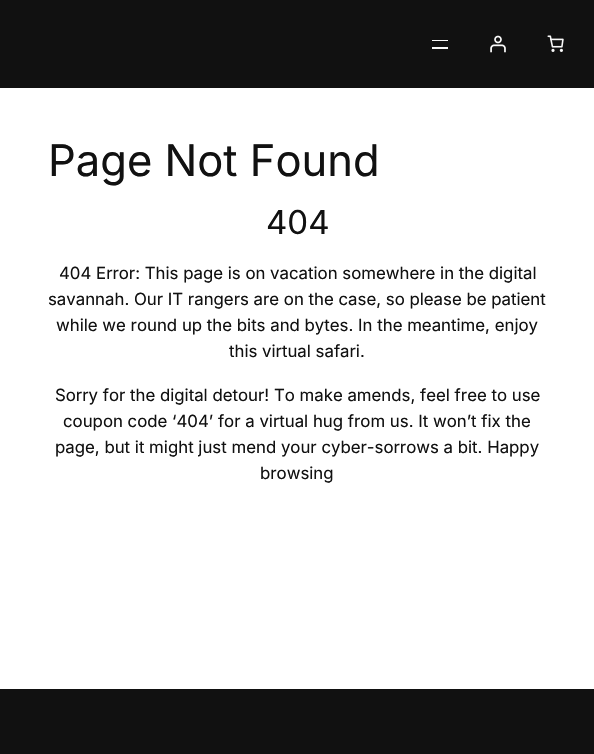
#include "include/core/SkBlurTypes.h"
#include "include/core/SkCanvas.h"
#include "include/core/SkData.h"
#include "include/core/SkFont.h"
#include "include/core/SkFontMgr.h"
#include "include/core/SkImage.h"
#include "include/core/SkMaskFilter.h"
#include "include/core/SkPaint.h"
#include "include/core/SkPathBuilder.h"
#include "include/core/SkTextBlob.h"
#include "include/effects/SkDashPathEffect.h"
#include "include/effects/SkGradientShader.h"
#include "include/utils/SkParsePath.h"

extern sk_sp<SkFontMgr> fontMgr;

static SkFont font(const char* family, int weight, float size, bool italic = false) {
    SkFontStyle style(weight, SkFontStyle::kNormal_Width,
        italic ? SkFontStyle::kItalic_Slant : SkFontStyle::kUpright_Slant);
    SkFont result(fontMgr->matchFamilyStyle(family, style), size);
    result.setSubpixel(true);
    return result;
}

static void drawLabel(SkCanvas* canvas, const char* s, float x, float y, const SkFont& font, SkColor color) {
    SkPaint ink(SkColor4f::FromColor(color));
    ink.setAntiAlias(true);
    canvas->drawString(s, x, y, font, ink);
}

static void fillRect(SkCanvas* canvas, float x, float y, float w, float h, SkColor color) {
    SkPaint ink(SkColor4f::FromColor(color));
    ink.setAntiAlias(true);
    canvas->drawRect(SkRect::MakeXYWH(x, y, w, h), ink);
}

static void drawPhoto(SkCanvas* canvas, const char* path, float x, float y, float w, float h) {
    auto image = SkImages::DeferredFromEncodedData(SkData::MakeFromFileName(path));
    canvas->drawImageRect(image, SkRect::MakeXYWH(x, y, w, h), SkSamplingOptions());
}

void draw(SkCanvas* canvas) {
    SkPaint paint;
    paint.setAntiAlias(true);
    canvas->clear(0xFFFFFFFF);
    fillRect(canvas, 0, 0, 594, 88, 0xFF111111);
    fillRect(canvas, 432, 40, 16, 1, 0xFFF9F9F9);
    fillRect(canvas, 432, 47, 16, 2, 0xFFF9F9F9);
    drawPhoto(canvas, "assets/img1.png", 490, 35, 16, 18);
    drawPhoto(canvas, "assets/img2.png", 547, 35, 17, 17);
    SkFont font1 = font("Inter", 400, 43.5f);
    drawLabel(canvas, "Page Not Found", 48, 176, font1, 0xFF111111);
    SkFont font2 = font("Inter", 400, 33);
    drawLabel(canvas, "404", 266, 234, font2, 0xFF111111);
    SkFont font3 = font("Inter", 400, 16.8f);
    drawLabel(canvas, "404 Error: This page is on vacation somewhere in the digital", 59, 279, font3, 0xFF111111);
    drawLabel(canvas, "savannah. Our IT rangers are on the case, so please be patient", 48, 305, font3, 0xFF111111);
    drawLabel(canvas, "while we round up the bits and bytes. In the meantime, enjoy", 56, 331, font3, 0xFF111111);
    drawLabel(canvas, "this virtual safari.", 229, 357, font3, 0xFF111111);
    drawLabel(canvas, "Sorry for the digital detour! To make amends, feel free to use", 55, 401, font3, 0xFF111111);
    drawLabel(canvas, "coupon code ‘404’ for a virtual hug from us. It won’t fix the", 63, 427, font3, 0xFF111111);
    drawLabel(canvas, "page, but it might just mend your cyber-sorrows a bit. Happy", 55, 453, font3, 0xFF111111);
    drawLabel(canvas, "browsing", 260, 479, font3, 0xFF111111);
    fillRect(canvas, 0, 689, 594, 65, 0xFF111111);
}
